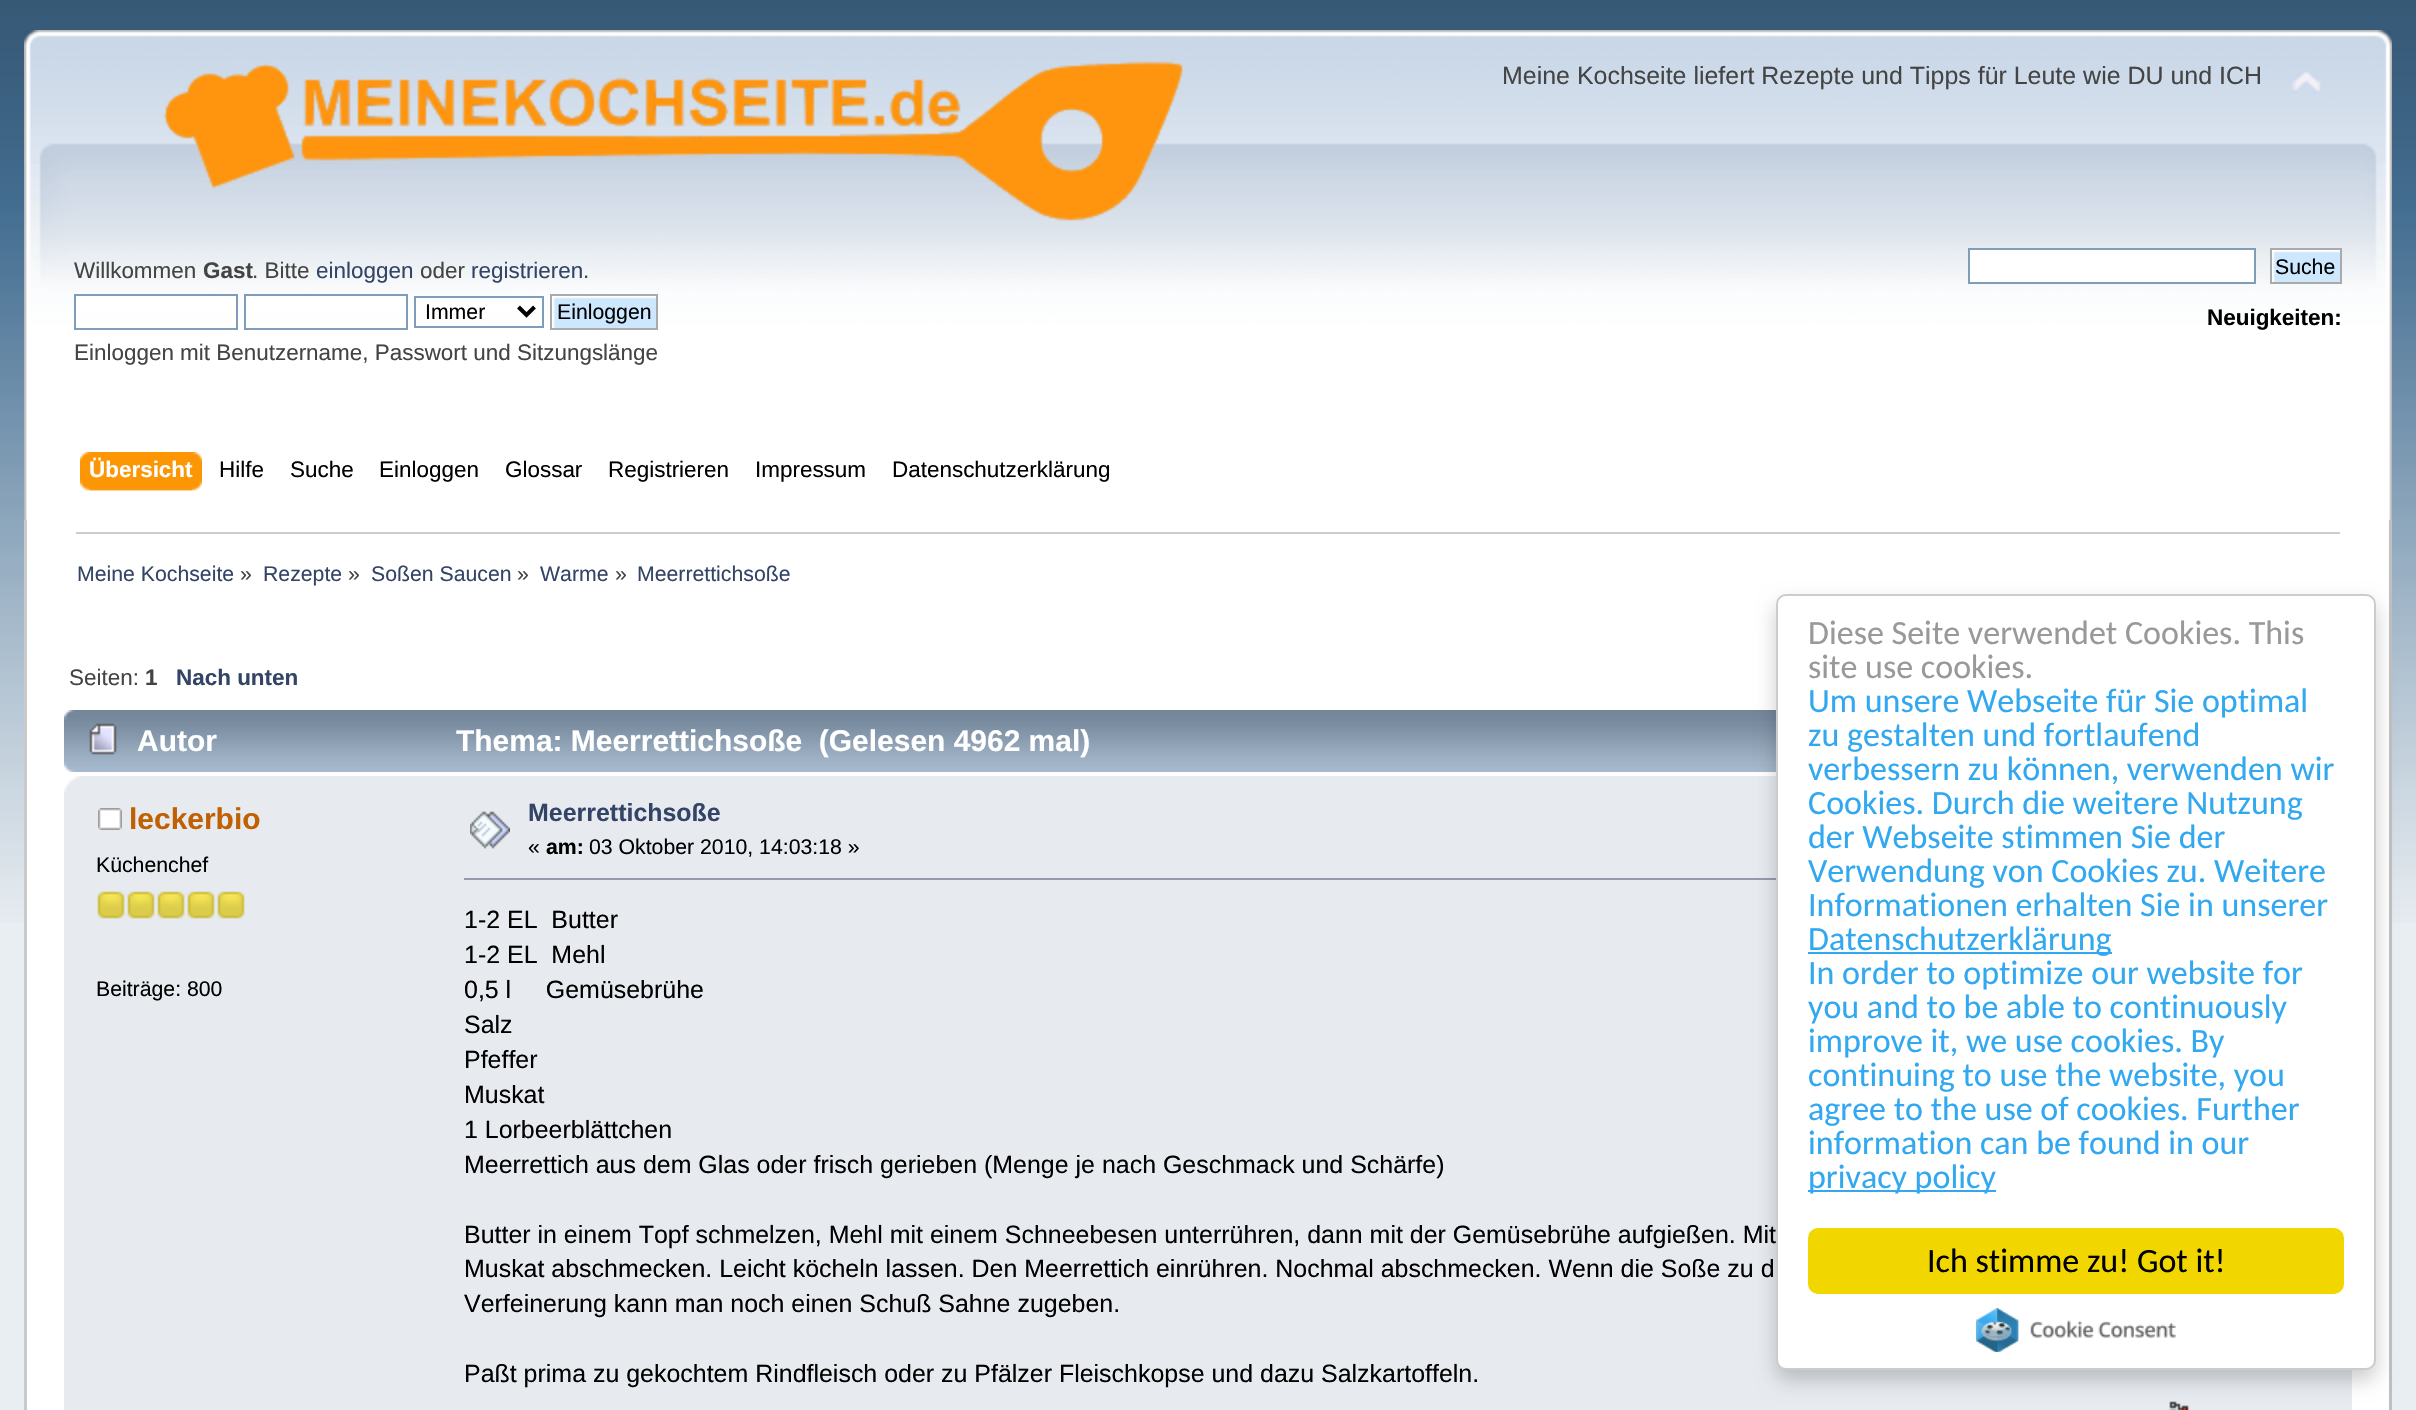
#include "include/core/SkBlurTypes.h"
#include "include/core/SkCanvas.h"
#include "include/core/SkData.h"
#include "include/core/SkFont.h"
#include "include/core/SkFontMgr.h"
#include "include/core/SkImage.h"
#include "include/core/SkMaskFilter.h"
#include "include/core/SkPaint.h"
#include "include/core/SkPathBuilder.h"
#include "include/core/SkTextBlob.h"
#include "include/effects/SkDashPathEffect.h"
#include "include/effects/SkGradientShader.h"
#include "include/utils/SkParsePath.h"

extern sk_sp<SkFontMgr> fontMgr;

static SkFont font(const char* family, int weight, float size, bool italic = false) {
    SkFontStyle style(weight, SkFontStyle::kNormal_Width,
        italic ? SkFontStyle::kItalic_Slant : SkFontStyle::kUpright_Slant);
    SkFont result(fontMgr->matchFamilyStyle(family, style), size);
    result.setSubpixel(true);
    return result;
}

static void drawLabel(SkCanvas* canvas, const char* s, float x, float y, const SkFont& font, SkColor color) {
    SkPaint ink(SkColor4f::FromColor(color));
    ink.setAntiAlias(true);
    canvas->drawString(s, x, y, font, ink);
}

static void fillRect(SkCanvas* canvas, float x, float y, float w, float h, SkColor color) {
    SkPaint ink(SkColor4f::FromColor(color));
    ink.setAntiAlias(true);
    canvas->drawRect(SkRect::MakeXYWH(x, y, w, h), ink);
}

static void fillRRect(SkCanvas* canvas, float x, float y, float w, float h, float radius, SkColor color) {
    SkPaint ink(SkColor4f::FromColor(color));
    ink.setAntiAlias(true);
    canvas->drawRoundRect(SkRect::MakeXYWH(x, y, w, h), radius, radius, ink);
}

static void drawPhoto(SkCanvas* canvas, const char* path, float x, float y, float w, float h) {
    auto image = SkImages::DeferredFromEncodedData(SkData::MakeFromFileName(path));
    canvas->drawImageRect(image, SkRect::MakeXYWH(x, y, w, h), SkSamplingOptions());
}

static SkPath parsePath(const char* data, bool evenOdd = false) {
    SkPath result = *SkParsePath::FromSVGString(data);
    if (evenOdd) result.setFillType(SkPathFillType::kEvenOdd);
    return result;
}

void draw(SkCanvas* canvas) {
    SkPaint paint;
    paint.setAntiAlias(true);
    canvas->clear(0xFFE9EEF2);
    drawPhoto(canvas, "assets/img1.png", 0, 0, 2416, 923);
    drawPhoto(canvas, "assets/img2.png", 24, 30, 2341, 490);
    drawPhoto(canvas, "assets/img3.png", 2365, 30, 27, 490);
    drawPhoto(canvas, "assets/img4.png", 163, 61, 1020, 160);
    SkFont font1 = font("Liberation Sans", 400, 24.95f);
    drawLabel(canvas, "Meine Kochseite liefert Rezepte und Tipps für Leute wie DU und ICH", 1502, 84, font1, 0xFF444444);
    drawPhoto(canvas, "assets/img5.png", 2292, 71, 29, 23);
    SkFont font2 = font("Liberation Sans", 400, 22.45f);
    drawLabel(canvas, "Willkommen", 74, 278, font2, 0xFF444444);
    SkFont font3 = font("Liberation Sans", 700, 22.45f);
    drawLabel(canvas, "Gast", 203, 278, font3, 0xFF444444);
    drawLabel(canvas, ". Bitte", 252, 278, font2, 0xFF444444);
    drawLabel(canvas, "einloggen", 316, 278, font2, 0xFF334466);
    drawLabel(canvas, "oder", 420, 278, font2, 0xFF444444);
    drawLabel(canvas, "registrieren", 471, 278, font2, 0xFF334466);
    drawLabel(canvas, ".", 583, 278, font2, 0xFF444444);
    fillRect(canvas, 76, 296, 160, 15, 0xFFFFFFFF);
    paint.setStroke(true);
    paint.setStrokeWidth(2);
    paint.setColor(0xFF7F9DB9);
    canvas->drawRect(SkRect::MakeXYWH(75, 295, 162, 34), paint);
    fillRect(canvas, 246, 296, 160, 15, 0xFFFFFFFF);
    canvas->drawRect(SkRect::MakeXYWH(245, 295, 162, 34), paint);
    fillRect(canvas, 416, 298, 126, 13, 0xFFFFFFFF);
    canvas->drawRect(SkRect::MakeXYWH(415, 297, 128, 30), paint);
    paint.setStrokeWidth(4);
    paint.setColor(0xFF000000);
    canvas->drawPath(parsePath("M518.5 307L526.5 315L534.5 307"), paint);
    SkFont font4 = font("Liberation Sans", 400, 21.25f);
    drawLabel(canvas, "Immer", 425, 319, font4, 0xFF000000);
    drawPhoto(canvas, "assets/img6.png", 552, 296, 104, 32);
    paint.setStrokeWidth(2);
    paint.setColor(0xFFAAAAAA);
    canvas->drawRect(SkRect::MakeXYWH(551, 295, 106, 34), paint);
    drawLabel(canvas, "Einloggen", 557, 319, font4, 0xFF000000);
    drawLabel(canvas, "Einloggen mit Benutzername, Passwort und Sitzungslänge", 74, 360, font2, 0xFF444444);
    paint.setStroke(false);
    paint.setColor(0xFFFFFFFF);
    canvas->drawRect(SkRect::MakeXYWH(1969, 249, 286, 34), paint);
    paint.setStroke(true);
    paint.setColor(0xFF7F9DB9);
    canvas->drawRect(SkRect::MakeXYWH(1969, 249, 286, 34), paint);
    drawPhoto(canvas, "assets/img7.png", 2272, 250, 68, 32);
    paint.setColor(0xFFAAAAAA);
    canvas->drawRect(SkRect::MakeXYWH(2271, 249, 70, 34), paint);
    drawLabel(canvas, "Suche", 2275, 274, font4, 0xFF000000);
    drawLabel(canvas, "Neuigkeiten:", 2207, 325, font3, 0xFF000000);
    drawPhoto(canvas, "assets/img8.png", 90, 452, 112, 39);
    drawPhoto(canvas, "assets/img9.png", 80, 452, 112, 39);
    drawLabel(canvas, "Übersicht", 89, 477, font3, 0xFFFFFFFF);
    drawLabel(canvas, "Hilfe", 219, 477, font2, 0xFF000000);
    drawLabel(canvas, "Suche", 290, 477, font2, 0xFF000000);
    drawLabel(canvas, "Einloggen", 379, 477, font2, 0xFF000000);
    drawLabel(canvas, "Glossar", 505, 477, font2, 0xFF000000);
    drawLabel(canvas, "Registrieren", 608, 477, font2, 0xFF000000);
    drawLabel(canvas, "Impressum", 755, 477, font2, 0xFF000000);
    drawLabel(canvas, "Datenschutzerklärung", 892, 477, font2, 0xFF000000);
    fillRect(canvas, 27, 520, 2362, 890, 0xFFFFFFFF);
    fillRect(canvas, 24, 520, 3, 890, 0xFFC9C9C9);
    fillRect(canvas, 2389, 520, 3, 890, 0xFFC0C0C0);
    fillRect(canvas, 76, 532, 2264, 2, 0xFFCCCCCC);
    drawLabel(canvas, "Meine Kochseite", 77, 581, font4, 0xFF334466);
    drawLabel(canvas, "»", 240, 581, font4, 0xFF444444);
    drawLabel(canvas, "Rezepte", 263, 581, font4, 0xFF334466);
    drawLabel(canvas, "»", 348, 581, font4, 0xFF444444);
    drawLabel(canvas, "Soßen Saucen", 371, 581, font4, 0xFF334466);
    drawLabel(canvas, "»", 517, 581, font4, 0xFF444444);
    drawLabel(canvas, "Warme", 540, 581, font4, 0xFF334466);
    drawLabel(canvas, "»", 615, 581, font4, 0xFF444444);
    drawLabel(canvas, "Meerrettichsoße", 637, 581, font4, 0xFF334466);
    drawLabel(canvas, "Seiten:", 69, 685, font2, 0xFF444444);
    drawLabel(canvas, "1", 145, 685, font3, 0xFF444444);
    drawLabel(canvas, "Nach unten", 176, 685, font3, 0xFF334466);
    drawPhoto(canvas, "assets/img10.png", 64, 710, 1712, 62);
    drawPhoto(canvas, "assets/img11.png", 89, 723, 28, 32);
    SkFont font5 = font("Liberation Sans", 700, 29.95f);
    drawLabel(canvas, "Autor", 137, 751, font5, 0xFFFFFFFF);
    drawLabel(canvas, "Thema: Meerrettichsoße  (Gelesen 4962 mal)", 456, 751, font5, 0xFFFFFFFF);
    fillRect(canvas, 64, 776, 2288, 634, 0xFFE7EAEF);
    drawPhoto(canvas, "assets/img12.png", 64, 776, 17, 17);
    drawPhoto(canvas, "assets/img13.png", 98, 808, 24, 22);
    drawLabel(canvas, "leckerbio", 129, 829, font5, 0xFFC06002);
    drawLabel(canvas, "Küchenchef", 96, 872, font4, 0xFF000000);
    drawPhoto(canvas, "assets/img14.png", 97, 891, 28, 28);
    drawPhoto(canvas, "assets/img14.png", 127, 891, 28, 28);
    drawPhoto(canvas, "assets/img14.png", 157, 891, 28, 28);
    drawPhoto(canvas, "assets/img14.png", 187, 891, 28, 28);
    drawPhoto(canvas, "assets/img14.png", 217, 891, 28, 28);
    drawLabel(canvas, "Beiträge: 800", 96, 996, font4, 0xFF000000);
    drawPhoto(canvas, "assets/img15.png", 470, 811, 40, 38);
    SkFont font6 = font("Liberation Sans", 700, 24.95f);
    drawLabel(canvas, "Meerrettichsoße", 528, 821, font6, 0xFF334466);
    drawLabel(canvas, "«", 528, 854, font4, 0xFF000000);
    SkFont font7 = font("Liberation Sans", 700, 21.25f);
    drawLabel(canvas, "am:", 546, 854, font7, 0xFF000000);
    drawLabel(canvas, "03 Oktober 2010, 14:03:18 »", 589, 854, font4, 0xFF000000);
    fillRect(canvas, 464, 878, 1312, 2, 0xFF9999AA);
    drawLabel(canvas, "1-2 EL  Butter", 464, 928, font1, 0xFF000000);
    drawLabel(canvas, "1-2 EL  Mehl", 464, 963, font1, 0xFF000000);
    drawLabel(canvas, "0,5 l     Gemüsebrühe", 464, 998, font1, 0xFF000000);
    drawLabel(canvas, "Salz", 464, 1033, font1, 0xFF000000);
    drawLabel(canvas, "Pfeffer", 464, 1068, font1, 0xFF000000);
    drawLabel(canvas, "Muskat", 464, 1103, font1, 0xFF000000);
    drawLabel(canvas, "1 Lorbeerblättchen", 464, 1138, font1, 0xFF000000);
    drawLabel(canvas, "Meerrettich aus dem Glas oder frisch gerieben (Menge je nach Geschmack und Schärfe)", 464, 1173, font1, 0xFF000000);
    drawLabel(canvas, "Butter in einem Topf schmelzen, Mehl mit einem Schneebesen unterrühren, dann mit der Gemüsebrühe aufgießen. Mit", 464, 1243, font1, 0xFF000000);
    drawLabel(canvas, "Muskat abschmecken. Leicht köcheln lassen. Den Meerrettich einrühren. Nochmal abschmecken. Wenn die Soße zu d", 464, 1277, font1, 0xFF000000);
    drawLabel(canvas, "Verfeinerung kann man noch einen Schuß Sahne zugeben.", 464, 1312, font1, 0xFF000000);
    drawLabel(canvas, "Paßt prima zu gekochtem Rindfleisch oder zu Pfälzer Fleischkopse und dazu Salzkartoffeln.", 464, 1382, font1, 0xFF000000);
    drawPhoto(canvas, "assets/img16.png", 2169, 1401, 20, 9);
    paint.setStroke(false);
    paint.setColor(0x33000000);
    paint.setMaskFilter(SkMaskFilter::MakeBlur(kNormal_SkBlurStyle, 10));
    canvas->drawRoundRect(SkRect::MakeXYWH(1776, 604, 600, 776), 10, 10, paint);
    paint.setMaskFilter(nullptr);
    paint.setColor(0xFFFFFFFF);
    canvas->drawRoundRect(SkRect::MakeXYWH(1777, 595, 598, 774), 9, 9, paint);
    paint.setStroke(true);
    paint.setColor(0xFFCCCCCC);
    canvas->drawRoundRect(SkRect::MakeXYWH(1777, 595, 598, 774), 9, 9, paint);
    SkFont font8 = font("Carlito", 400, 34);
    drawLabel(canvas, "Diese Seite verwendet Cookies. This", 1808, 644, font8, 0xFF999999);
    drawLabel(canvas, "site use cookies.", 1808, 678, font8, 0xFF999999);
    drawLabel(canvas, "Um unsere Webseite für Sie optimal", 1808, 712, font8, 0xFF31A8F0);
    drawLabel(canvas, "zu gestalten und fortlaufend", 1808, 746, font8, 0xFF31A8F0);
    drawLabel(canvas, "verbessern zu können, verwenden wir", 1808, 780, font8, 0xFF31A8F0);
    drawLabel(canvas, "Cookies. Durch die weitere Nutzung", 1808, 814, font8, 0xFF31A8F0);
    drawLabel(canvas, "der Webseite stimmen Sie der", 1808, 848, font8, 0xFF31A8F0);
    drawLabel(canvas, "Verwendung von Cookies zu. Weitere", 1808, 882, font8, 0xFF31A8F0);
    drawLabel(canvas, "Informationen erhalten Sie in unserer", 1808, 916, font8, 0xFF31A8F0);
    fillRect(canvas, 1808, 952, 304, 2, 0xFF31A8F0);
    drawLabel(canvas, "Datenschutzerklärung", 1808, 950, font8, 0xFF31A8F0);
    drawLabel(canvas, "In order to optimize our website for", 1808, 984, font8, 0xFF31A8F0);
    drawLabel(canvas, "you and to be able to continuously", 1808, 1018, font8, 0xFF31A8F0);
    drawLabel(canvas, "improve it, we use cookies. By", 1808, 1052, font8, 0xFF31A8F0);
    drawLabel(canvas, "continuing to use the website, you", 1808, 1086, font8, 0xFF31A8F0);
    drawLabel(canvas, "agree to the use of cookies. Further", 1808, 1120, font8, 0xFF31A8F0);
    drawLabel(canvas, "information can be found in our", 1808, 1154, font8, 0xFF31A8F0);
    fillRect(canvas, 1808, 1190, 188, 2, 0xFF31A8F0);
    drawLabel(canvas, "privacy policy", 1808, 1188, font8, 0xFF31A8F0);
    fillRRect(canvas, 1808, 1228, 536, 66, 10, 0xFFF1D600);
    drawLabel(canvas, "Ich stimme zu! Got it!", 1927, 1272, font8, 0xFF000000);
    drawPhoto(canvas, "assets/img17.png", 1976, 1308, 200, 44);
}
